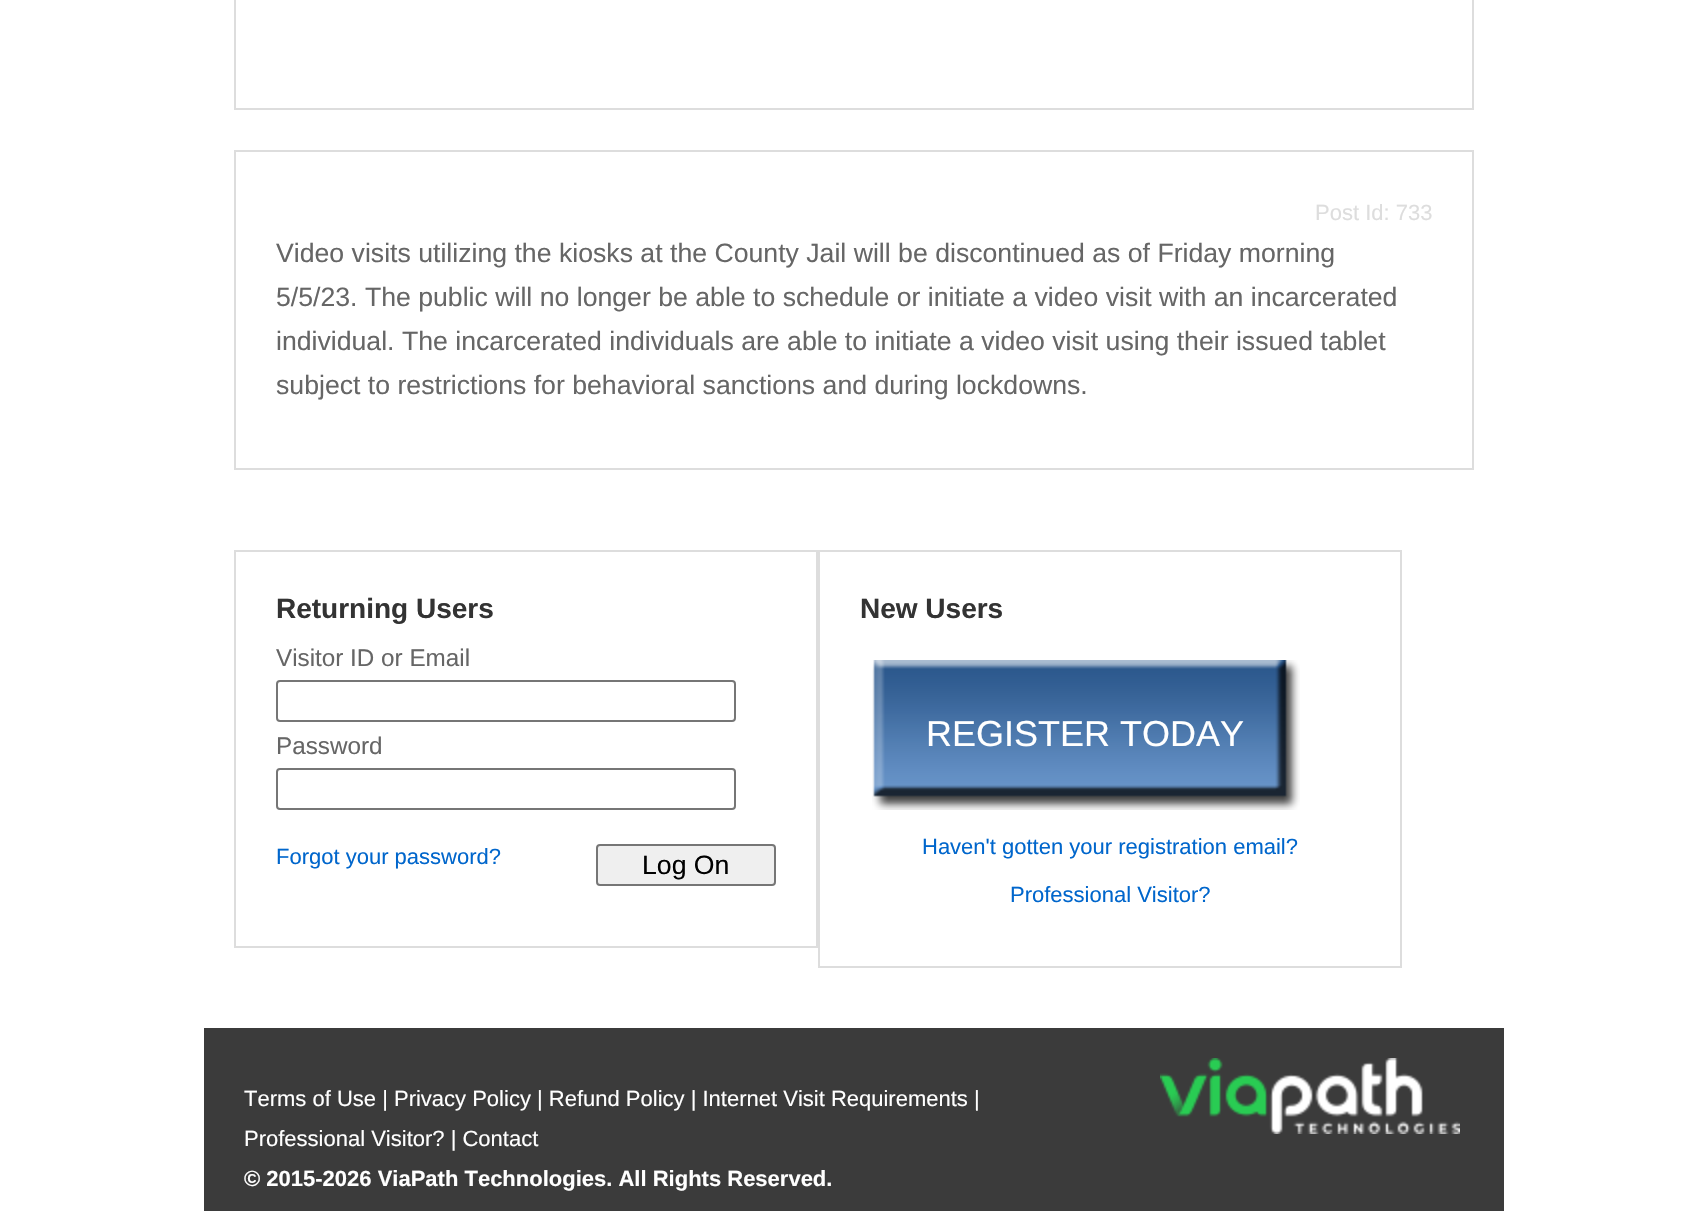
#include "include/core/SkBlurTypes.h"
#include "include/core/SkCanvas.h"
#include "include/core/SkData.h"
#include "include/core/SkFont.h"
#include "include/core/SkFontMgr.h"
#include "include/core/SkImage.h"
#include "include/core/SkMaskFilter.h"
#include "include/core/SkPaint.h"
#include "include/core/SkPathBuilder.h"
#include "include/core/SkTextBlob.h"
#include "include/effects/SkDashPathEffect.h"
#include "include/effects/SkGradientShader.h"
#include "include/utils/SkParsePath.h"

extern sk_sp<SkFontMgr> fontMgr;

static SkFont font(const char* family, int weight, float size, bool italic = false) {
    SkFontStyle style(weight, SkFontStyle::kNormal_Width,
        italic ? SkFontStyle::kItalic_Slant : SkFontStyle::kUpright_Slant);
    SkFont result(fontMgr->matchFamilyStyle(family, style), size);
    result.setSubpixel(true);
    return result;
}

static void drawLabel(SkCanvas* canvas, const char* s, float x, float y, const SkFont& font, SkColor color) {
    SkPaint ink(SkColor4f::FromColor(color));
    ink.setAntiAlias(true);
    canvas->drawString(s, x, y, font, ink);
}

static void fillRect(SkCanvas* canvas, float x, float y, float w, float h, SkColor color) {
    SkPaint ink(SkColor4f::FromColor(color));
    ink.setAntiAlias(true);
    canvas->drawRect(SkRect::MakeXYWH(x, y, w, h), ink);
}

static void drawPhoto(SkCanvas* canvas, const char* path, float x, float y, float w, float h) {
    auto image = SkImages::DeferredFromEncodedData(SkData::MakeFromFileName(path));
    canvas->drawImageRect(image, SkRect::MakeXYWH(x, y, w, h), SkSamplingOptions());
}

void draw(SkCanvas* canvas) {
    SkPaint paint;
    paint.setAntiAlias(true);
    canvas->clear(0xFFFFFFFF);
    paint.setStroke(true);
    paint.setStrokeWidth(2);
    paint.setColor(0xFFDDDDDD);
    canvas->drawRect(SkRect::MakeXYWH(235, -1, 1238, 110), paint);
    canvas->drawRect(SkRect::MakeXYWH(235, 151, 1238, 318), paint);
    SkFont font1 = font("Liberation Sans", 400, 22);
    drawLabel(canvas, "Post Id: 733", 1315, 220, font1, 0xFFDDDDDD);
    SkFont font2 = font("Liberation Sans", 400, 26.65f);
    drawLabel(canvas, "Video visits utilizing the kiosks at the County Jail will be discontinued as of Friday morning", 276, 262, font2, 0xFF666666);
    drawLabel(canvas, "5/5/23. The public will no longer be able to schedule or initiate a video visit with an incarcerated", 276, 306, font2, 0xFF666666);
    drawLabel(canvas, "individual. The incarcerated individuals are able to initiate a video visit using their issued tablet", 276, 350, font2, 0xFF666666);
    drawLabel(canvas, "subject to restrictions for behavioral sanctions and during lockdowns.", 276, 394, font2, 0xFF666666);
    canvas->drawRect(SkRect::MakeXYWH(235, 551, 582, 396), paint);
    SkFont font3 = font("Liberation Sans", 700, 28);
    drawLabel(canvas, "Returning Users", 276, 618, font3, 0xFF333333);
    SkFont font4 = font("Liberation Sans", 400, 24.25f);
    drawLabel(canvas, "Visitor ID or Email", 276, 666, font4, 0xFF666666);
    paint.setColor(0xFF767676);
    canvas->drawRoundRect(SkRect::MakeXYWH(277, 681, 458, 40), 3, 3, paint);
    drawLabel(canvas, "Password", 276, 754, font4, 0xFF666666);
    canvas->drawRoundRect(SkRect::MakeXYWH(277, 769, 458, 40), 3, 3, paint);
    drawLabel(canvas, "Forgot your password?", 276, 864, font1, 0xFF0066CC);
    paint.setStroke(false);
    paint.setColor(0xFFEFEFEF);
    canvas->drawRoundRect(SkRect::MakeXYWH(597, 845, 178, 40), 3, 3, paint);
    paint.setStroke(true);
    paint.setColor(0xFF767676);
    canvas->drawRoundRect(SkRect::MakeXYWH(597, 845, 178, 40), 3, 3, paint);
    drawLabel(canvas, "Log On", 642, 874, font2, 0xFF000000);
    paint.setColor(0xFFDDDDDD);
    canvas->drawRect(SkRect::MakeXYWH(819, 551, 582, 416), paint);
    drawLabel(canvas, "New Users", 860, 618, font3, 0xFF333333);
    drawPhoto(canvas, "assets/img1.png", 872, 660, 428, 150);
    SkFont font5 = font("Liberation Sans", 400, 36);
    drawLabel(canvas, "REGISTER TODAY", 926, 746, font5, 0xFFFFFFFF);
    drawLabel(canvas, "Haven't gotten your registration email?", 922, 854, font1, 0xFF0066CC);
    drawLabel(canvas, "Professional Visitor?", 1010, 902, font1, 0xFF0066CC);
    fillRect(canvas, 204, 1028, 1300, 183, 0xFF3B3B3B);
    drawLabel(canvas, "Terms of Use | Privacy Policy | Refund Policy | Internet Visit Requirements |", 244, 1106, font1, 0xFFFFFFFF);
    drawLabel(canvas, "Professional Visitor? | Contact", 244, 1146, font1, 0xFFFFFFFF);
    SkFont font6 = font("Liberation Sans", 700, 22);
    drawLabel(canvas, "© 2015-2026 ViaPath Technologies. All Rights Reserved.", 244, 1186, font6, 0xFFFFFFFF);
    drawPhoto(canvas, "assets/img2.png", 1160, 1058, 300, 76);
}
